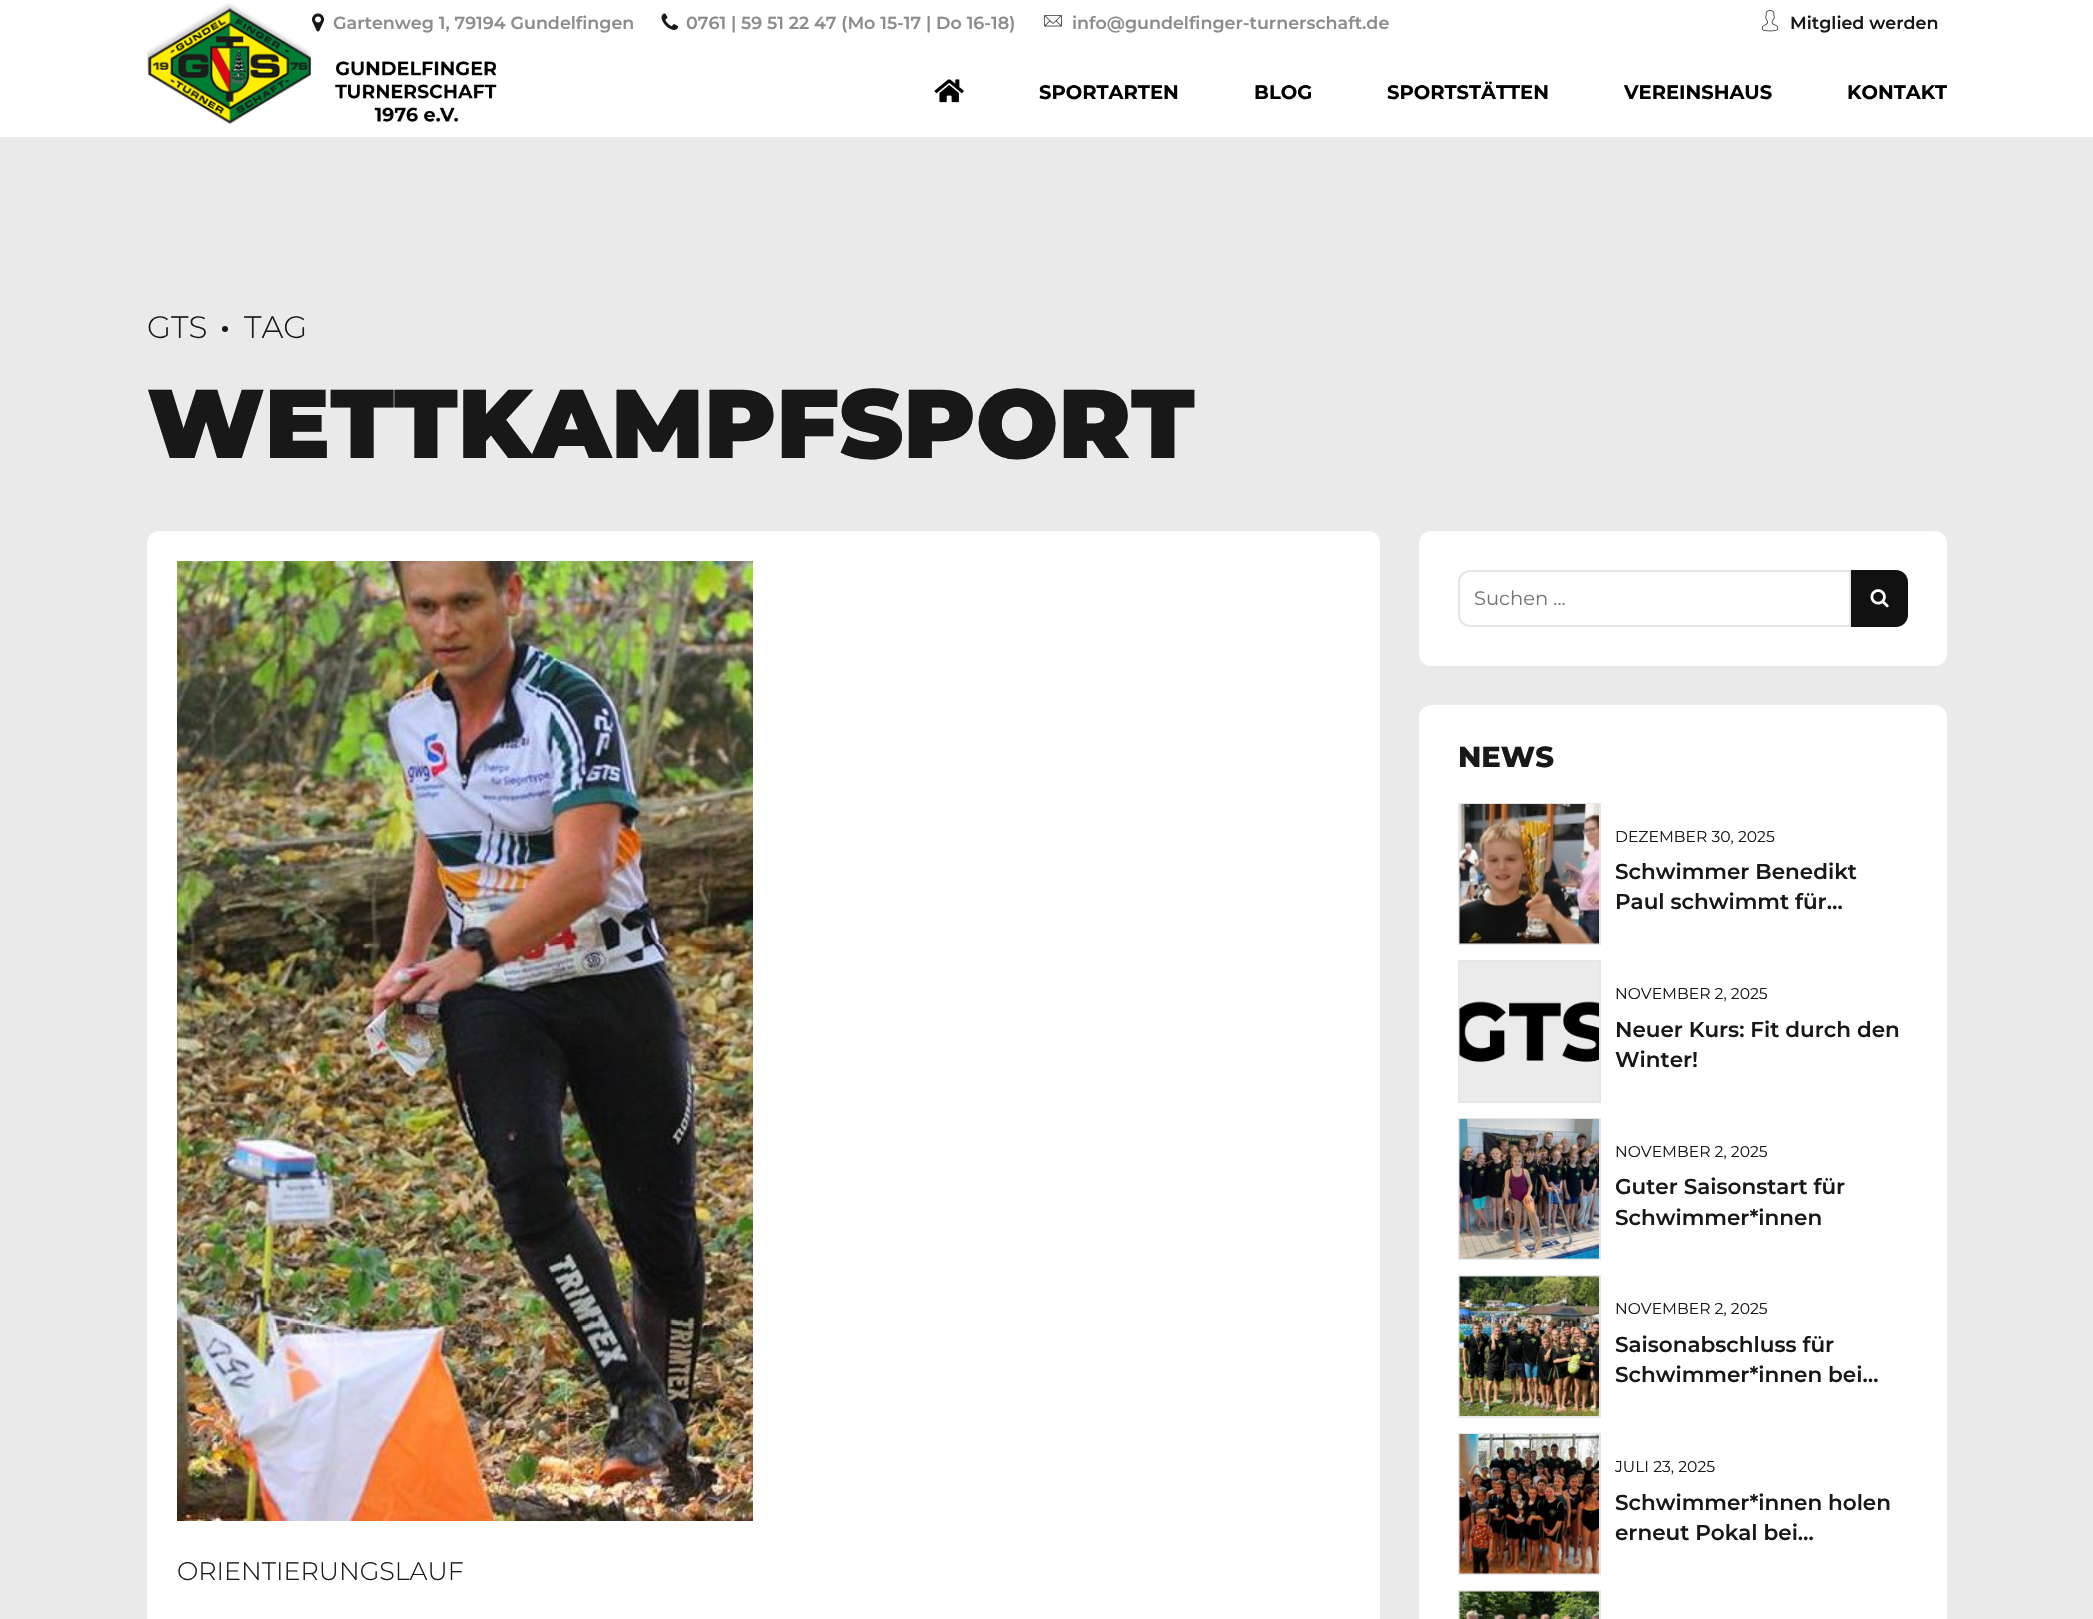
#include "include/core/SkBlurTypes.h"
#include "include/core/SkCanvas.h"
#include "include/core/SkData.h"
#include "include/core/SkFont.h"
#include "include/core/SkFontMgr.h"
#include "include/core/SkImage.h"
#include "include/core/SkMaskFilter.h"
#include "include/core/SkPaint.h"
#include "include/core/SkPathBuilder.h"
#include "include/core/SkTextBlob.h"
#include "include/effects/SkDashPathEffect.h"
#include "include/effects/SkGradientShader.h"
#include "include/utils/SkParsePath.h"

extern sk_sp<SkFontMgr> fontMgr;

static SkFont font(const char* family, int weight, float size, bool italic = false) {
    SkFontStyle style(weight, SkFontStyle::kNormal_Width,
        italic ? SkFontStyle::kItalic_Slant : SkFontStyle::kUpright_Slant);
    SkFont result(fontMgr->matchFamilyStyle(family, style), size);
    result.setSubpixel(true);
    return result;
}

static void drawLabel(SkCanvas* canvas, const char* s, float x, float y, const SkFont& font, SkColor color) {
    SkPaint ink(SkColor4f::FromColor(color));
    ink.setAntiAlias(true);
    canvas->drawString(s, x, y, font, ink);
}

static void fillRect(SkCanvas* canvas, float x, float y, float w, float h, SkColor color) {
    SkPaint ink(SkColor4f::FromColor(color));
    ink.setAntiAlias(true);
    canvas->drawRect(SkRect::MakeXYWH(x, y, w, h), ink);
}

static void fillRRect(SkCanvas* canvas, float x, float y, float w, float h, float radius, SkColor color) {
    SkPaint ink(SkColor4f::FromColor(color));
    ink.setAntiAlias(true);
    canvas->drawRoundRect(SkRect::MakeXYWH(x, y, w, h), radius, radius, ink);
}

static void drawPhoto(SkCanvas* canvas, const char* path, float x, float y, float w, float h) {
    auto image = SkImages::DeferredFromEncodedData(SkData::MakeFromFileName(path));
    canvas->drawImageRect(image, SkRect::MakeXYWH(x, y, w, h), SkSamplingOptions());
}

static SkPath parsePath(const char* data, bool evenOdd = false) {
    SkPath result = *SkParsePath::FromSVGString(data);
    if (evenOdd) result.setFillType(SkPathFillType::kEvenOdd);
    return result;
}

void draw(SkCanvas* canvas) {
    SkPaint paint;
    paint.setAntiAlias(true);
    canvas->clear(0xFFEAEAEA);
    fillRect(canvas, 0, 0, 2093, 137, 0xFFFFFFFF);
    drawPhoto(canvas, "assets/img1.png", 312, 13, 12, 19);
    SkFont font1 = font("Montserrat", 600, 17.5f);
    drawLabel(canvas, "Gartenweg 1, 79194 Gundelfingen", 333, 29, font1, 0xFF8C8C8C);
    drawPhoto(canvas, "assets/img2.png", 661, 13, 17, 17);
    drawLabel(canvas, "0761 | 59 51 22 47 (Mo 15-17 | Do 16-18)", 686, 29, font1, 0xFF8C8C8C);
    drawPhoto(canvas, "assets/img3.png", 1044, 15, 18, 12);
    drawLabel(canvas, "info@gundelfinger-turnerschaft.de", 1072, 29, font1, 0xFF8C8C8C);
    drawPhoto(canvas, "assets/img4.png", 1761, 10, 18, 22);
    drawLabel(canvas, "Mitglied werden", 1790, 29, font1, 0xFF181818);
    drawPhoto(canvas, "assets/img5.png", 147, 3, 165, 121);
    drawPhoto(canvas, "assets/img6.png", 335, 61, 162, 61);
    drawPhoto(canvas, "assets/img7.png", 934, 79, 30, 24);
    SkFont font2 = font("Montserrat", 700, 19.5f);
    drawLabel(canvas, "SPORTARTEN", 1039, 99, font2, 0xFF000000);
    drawLabel(canvas, "BLOG", 1254, 99, font2, 0xFF000000);
    drawLabel(canvas, "SPORTSTÄTTEN", 1387, 99, font2, 0xFF000000);
    drawLabel(canvas, "VEREINSHAUS", 1624, 99, font2, 0xFF000000);
    drawLabel(canvas, "KONTAKT", 1847, 99, font2, 0xFF000000);
    SkFont font3 = font("Montserrat", 300, 31);
    drawLabel(canvas, "GTS", 147, 338, font3, 0xFF181818);
    paint.setColor(0xFF181818);
    canvas->drawCircle(225, 329, 3, paint);
    drawLabel(canvas, "TAG", 244, 338, font3, 0xFF181818);
    SkFont font4 = font("Montserrat", 900, 97.5f);
    drawLabel(canvas, "WETTKAMPFSPORT", 147, 458, font4, 0xFF181818);
    fillRRect(canvas, 1419, 531, 528, 135, 12, 0xFFFFFFFF);
    paint.setStroke(true);
    paint.setStrokeWidth(2);
    paint.setColor(0xFFE6E6E6);
    canvas->drawPath(parsePath("M1470 571H1850V626H1470C1464 626 1459 621 1459 615V582C1459 576 1464 571 1470 571Z"), paint);
    SkFont font5 = font("Montserrat", 400, 19.5f);
    drawLabel(canvas, "Suchen ...", 1474, 605, font5, 0xFF757575);
    paint.setStroke(false);
    paint.setColor(0xFF111111);
    canvas->drawPath(parsePath("M1851 570H1896C1902.5 570 1908 575.5 1908 582V615C1908 621.5 1902.5 627 1896 627H1851Z"), paint);
    drawPhoto(canvas, "assets/img8.png", 1870, 589, 19, 19);
    fillRRect(canvas, 1419, 705, 528, 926, 12, 0xFFFFFFFF);
    SkFont font6 = font("Montserrat", 800, 29);
    drawLabel(canvas, "NEWS", 1458, 767, font6, 0xFF181818);
    paint.setStroke(true);
    paint.setColor(0xFFE6E6E6);
    canvas->drawRect(SkRect::MakeXYWH(1459, 804, 141, 140), paint);
    drawPhoto(canvas, "assets/img9.png", 1459, 804, 140, 140);
    SkFont font7 = font("Montserrat", 400, 15.6f);
    drawLabel(canvas, "DEZEMBER 30, 2025", 1615, 842, font7, 0xFF181818);
    SkFont font8 = font("Montserrat", 600, 21.5f);
    drawLabel(canvas, "Schwimmer Benedikt", 1615, 879, font8, 0xFF181818);
    drawLabel(canvas, "Paul schwimmt für…", 1615, 909, font8, 0xFF181818);
    canvas->drawRect(SkRect::MakeXYWH(1459, 961, 141, 141), paint);
    drawPhoto(canvas, "assets/img10.png", 1459, 962, 140, 139);
    drawLabel(canvas, "NOVEMBER 2, 2025", 1615, 999, font7, 0xFF181818);
    drawLabel(canvas, "Neuer Kurs: Fit durch den", 1615, 1037, font8, 0xFF181818);
    drawLabel(canvas, "Winter!", 1615, 1067, font8, 0xFF181818);
    canvas->drawRect(SkRect::MakeXYWH(1459, 1119, 141, 140), paint);
    drawPhoto(canvas, "assets/img11.png", 1459, 1119, 140, 140);
    drawLabel(canvas, "NOVEMBER 2, 2025", 1615, 1157, font7, 0xFF181818);
    drawLabel(canvas, "Guter Saisonstart für", 1615, 1194, font8, 0xFF181818);
    drawLabel(canvas, "Schwimmer*innen", 1615, 1225, font8, 0xFF181818);
    canvas->drawRect(SkRect::MakeXYWH(1459, 1276, 141, 141), paint);
    drawPhoto(canvas, "assets/img12.png", 1459, 1276, 140, 140);
    drawLabel(canvas, "NOVEMBER 2, 2025", 1615, 1314, font7, 0xFF181818);
    drawLabel(canvas, "Saisonabschluss für", 1615, 1352, font8, 0xFF181818);
    drawLabel(canvas, "Schwimmer*innen bei…", 1615, 1382, font8, 0xFF181818);
    canvas->drawRect(SkRect::MakeXYWH(1459, 1434, 141, 140), paint);
    drawPhoto(canvas, "assets/img13.png", 1459, 1434, 140, 140);
    drawLabel(canvas, "JULI 23, 2025", 1615, 1472, font7, 0xFF181818);
    drawLabel(canvas, "Schwimmer*innen holen", 1615, 1510, font8, 0xFF181818);
    drawLabel(canvas, "erneut Pokal bei…", 1615, 1540, font8, 0xFF181818);
    canvas->drawRect(SkRect::MakeXYWH(1459, 1591, 141, 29), paint);
    drawPhoto(canvas, "assets/img14.png", 1459, 1591, 140, 28);
    fillRRect(canvas, 147, 531, 1233, 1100, 12, 0xFFFFFFFF);
    drawPhoto(canvas, "assets/img15.png", 177, 561, 576, 960);
    SkFont font9 = font("Montserrat", 300, 25.4f);
    drawLabel(canvas, "ORIENTIERUNGSLAUF", 177, 1580, font9, 0xFF181818);
}
